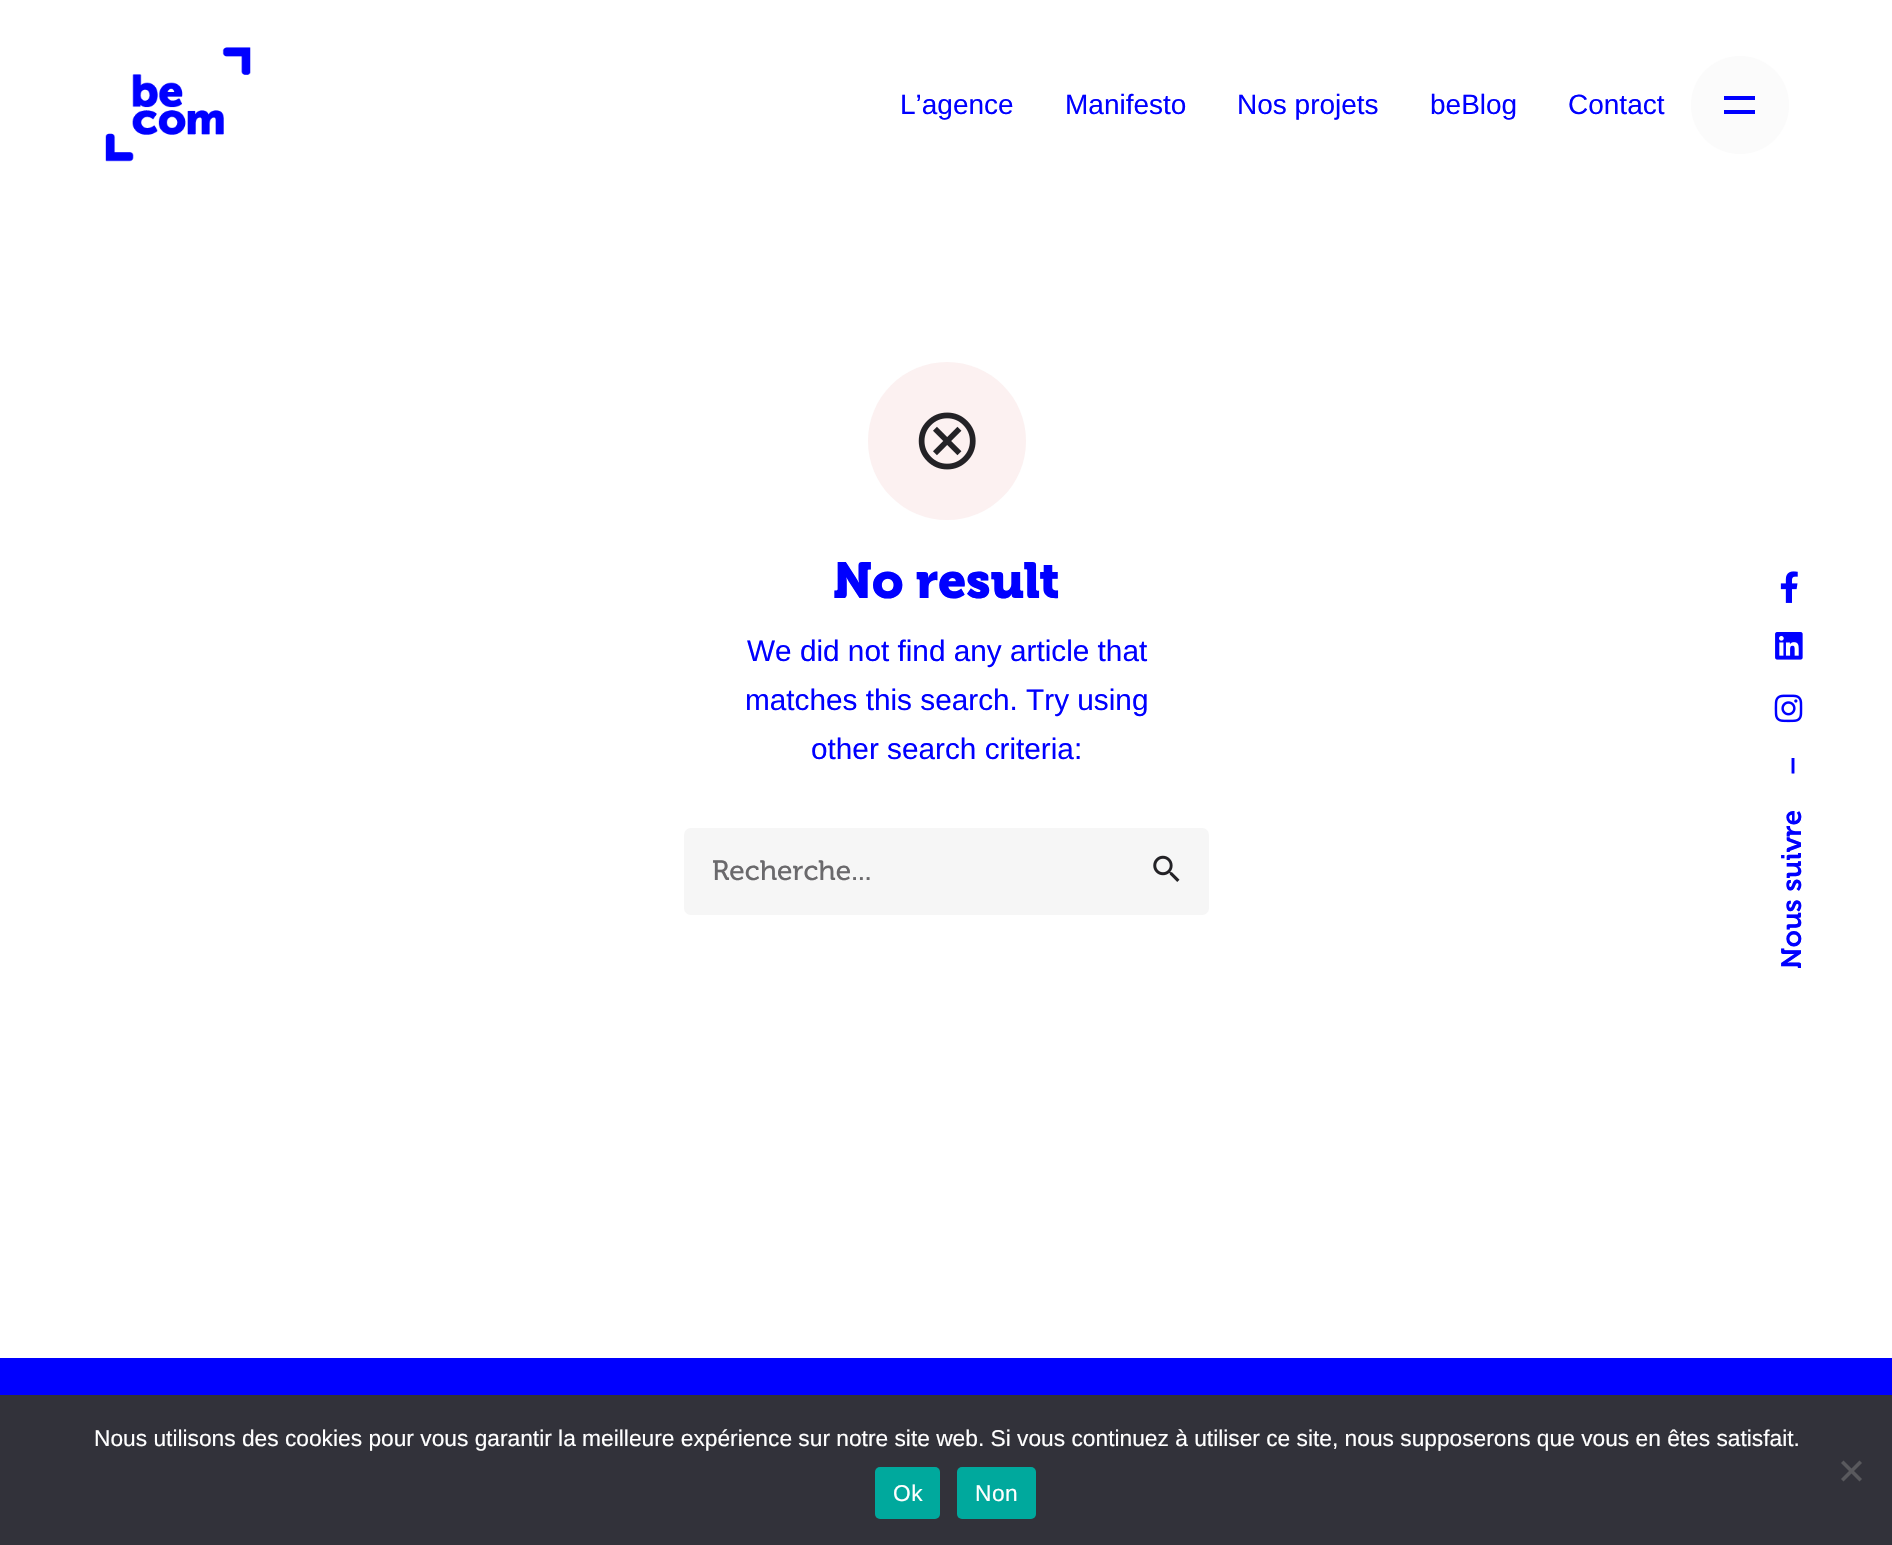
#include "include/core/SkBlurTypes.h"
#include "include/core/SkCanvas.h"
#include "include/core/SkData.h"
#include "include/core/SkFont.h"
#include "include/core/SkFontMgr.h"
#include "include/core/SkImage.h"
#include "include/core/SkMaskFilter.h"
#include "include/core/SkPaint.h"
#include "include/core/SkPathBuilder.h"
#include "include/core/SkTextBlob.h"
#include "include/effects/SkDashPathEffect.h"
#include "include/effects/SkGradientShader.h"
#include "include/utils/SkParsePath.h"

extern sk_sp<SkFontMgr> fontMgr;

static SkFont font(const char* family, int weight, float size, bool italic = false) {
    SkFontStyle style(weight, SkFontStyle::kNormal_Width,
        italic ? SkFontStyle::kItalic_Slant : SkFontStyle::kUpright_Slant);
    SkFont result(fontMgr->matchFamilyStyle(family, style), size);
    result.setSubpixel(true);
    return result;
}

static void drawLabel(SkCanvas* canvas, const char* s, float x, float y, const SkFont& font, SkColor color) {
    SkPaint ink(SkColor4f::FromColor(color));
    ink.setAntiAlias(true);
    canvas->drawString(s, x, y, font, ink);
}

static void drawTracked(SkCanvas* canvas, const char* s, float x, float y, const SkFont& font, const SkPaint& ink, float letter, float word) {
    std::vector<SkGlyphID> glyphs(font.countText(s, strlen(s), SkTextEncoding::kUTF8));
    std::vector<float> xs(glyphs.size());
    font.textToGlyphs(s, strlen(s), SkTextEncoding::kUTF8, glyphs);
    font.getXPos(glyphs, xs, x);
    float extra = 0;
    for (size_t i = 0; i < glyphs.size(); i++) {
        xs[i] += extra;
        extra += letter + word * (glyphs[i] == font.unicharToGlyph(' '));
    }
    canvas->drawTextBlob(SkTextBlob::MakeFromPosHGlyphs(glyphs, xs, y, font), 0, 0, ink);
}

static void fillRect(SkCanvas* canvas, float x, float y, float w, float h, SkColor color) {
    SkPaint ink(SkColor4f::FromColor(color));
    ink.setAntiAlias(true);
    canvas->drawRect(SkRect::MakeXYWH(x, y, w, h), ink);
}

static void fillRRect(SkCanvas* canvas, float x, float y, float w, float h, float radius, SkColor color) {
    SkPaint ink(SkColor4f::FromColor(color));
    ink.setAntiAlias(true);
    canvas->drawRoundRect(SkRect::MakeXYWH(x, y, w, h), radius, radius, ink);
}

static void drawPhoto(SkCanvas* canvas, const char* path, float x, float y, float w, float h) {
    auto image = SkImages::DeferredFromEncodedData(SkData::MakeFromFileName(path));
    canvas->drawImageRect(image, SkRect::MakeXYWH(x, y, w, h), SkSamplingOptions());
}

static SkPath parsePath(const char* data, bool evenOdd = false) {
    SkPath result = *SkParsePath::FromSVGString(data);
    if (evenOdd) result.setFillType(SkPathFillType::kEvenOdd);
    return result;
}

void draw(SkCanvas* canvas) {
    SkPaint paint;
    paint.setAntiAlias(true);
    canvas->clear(0xFFFFFFFF);
    drawPhoto(canvas, "assets/img1.png", 105, 47, 146, 115);
    SkFont font1 = font("Liberation Sans", 400, 28);
    drawLabel(canvas, "L’agence", 900, 114, font1, 0xFF0000FF);
    drawLabel(canvas, "Manifesto", 1065, 114, font1, 0xFF0000FF);
    drawLabel(canvas, "Nos projets", 1237, 114, font1, 0xFF0000FF);
    drawLabel(canvas, "beBlog", 1430, 114, font1, 0xFF0000FF);
    drawLabel(canvas, "Contact", 1568, 114, font1, 0xFF0000FF);
    paint.setColor(0xFFFBFBFB);
    canvas->drawCircle(1740, 105, 49, paint);
    fillRect(canvas, 1724, 96, 31, 4, 0xFF0000FF);
    fillRect(canvas, 1724, 110, 31, 4, 0xFF0000FF);
    paint.setColor(0xFFFCF1F1);
    canvas->drawCircle(947, 441, 79, paint);
    drawPhoto(canvas, "assets/img2.png", 918, 412, 58, 58);
    SkFont font2 = font("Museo", 700, 50.5f);
    paint.setColor(0xFF0000FF);
    drawTracked(canvas, "No result", 833, 598, font2, paint, -0.5f, 0);
    SkFont font3 = font("Liberation Sans", 400, 29.75f);
    drawLabel(canvas, "We did not find any article that", 747, 661, font3, 0xFF0000FF);
    drawLabel(canvas, "matches this search. Try using", 745, 710, font3, 0xFF0000FF);
    drawLabel(canvas, "other search criteria:", 811, 759, font3, 0xFF0000FF);
    fillRRect(canvas, 684, 828, 525, 87, 7, 0xFFF6F6F6);
    SkFont font4 = font("Museo", 400, 28);
    drawLabel(canvas, "Recherche...", 712, 880, font4, 0xFF6A696C);
    drawPhoto(canvas, "assets/img3.png", 1153, 855, 27, 27);
    fillRect(canvas, 0, 1358, 1892, 37, 0xFF0000FF);
    drawPhoto(canvas, "assets/img4.png", 1780, 571, 18, 32);
    drawPhoto(canvas, "assets/img5.png", 1775, 632, 28, 28);
    drawPhoto(canvas, "assets/img6.png", 1774, 694, 29, 29);
    SkFont font5 = font("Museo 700", 600, 28);
    canvas->save();
    canvas->rotate(-90, 1801, 775);
    drawLabel(canvas, "–", 1801, 775, font5, 0xFF0000FF);
    canvas->restore();
    canvas->save();
    canvas->rotate(-90, 1801, 969);
    drawLabel(canvas, "Nous suivre", 1801, 969, font5, 0xFF0000FF);
    canvas->restore();
    fillRect(canvas, 0, 1395, 1892, 150, 0xFF32323A);
    SkFont font6 = font("Liberation Sans", 400, 22.75f);
    drawLabel(canvas, "Nous utilisons des cookies pour vous garantir la meilleure expérience sur notre site web. Si vous continuez à utiliser ce site, nous supposerons que vous en êtes satisfait.", 94, 1446, font6, 0xFFFFFFFF);
    paint.setColor(0xFF59595D);
    canvas->drawPath(parsePath("M1859.5 1460.5L1862 1463L1843.5 1481.5L1841 1479Z"), paint);
    canvas->drawPath(parsePath("M1841 1463L1843.5 1460.5L1862 1479L1859.5 1481.5Z"), paint);
    fillRRect(canvas, 875, 1467, 65, 52, 5, 0xFF00A99D);
    paint.setColor(0xFFFFFFFF);
    drawTracked(canvas, "Ok", 893, 1501, font6, paint, 0.5f, 0);
    fillRRect(canvas, 957, 1467, 79, 52, 5, 0xFF00A99D);
    drawTracked(canvas, "Non", 975, 1501, font6, paint, 0.5f, 0);
}
